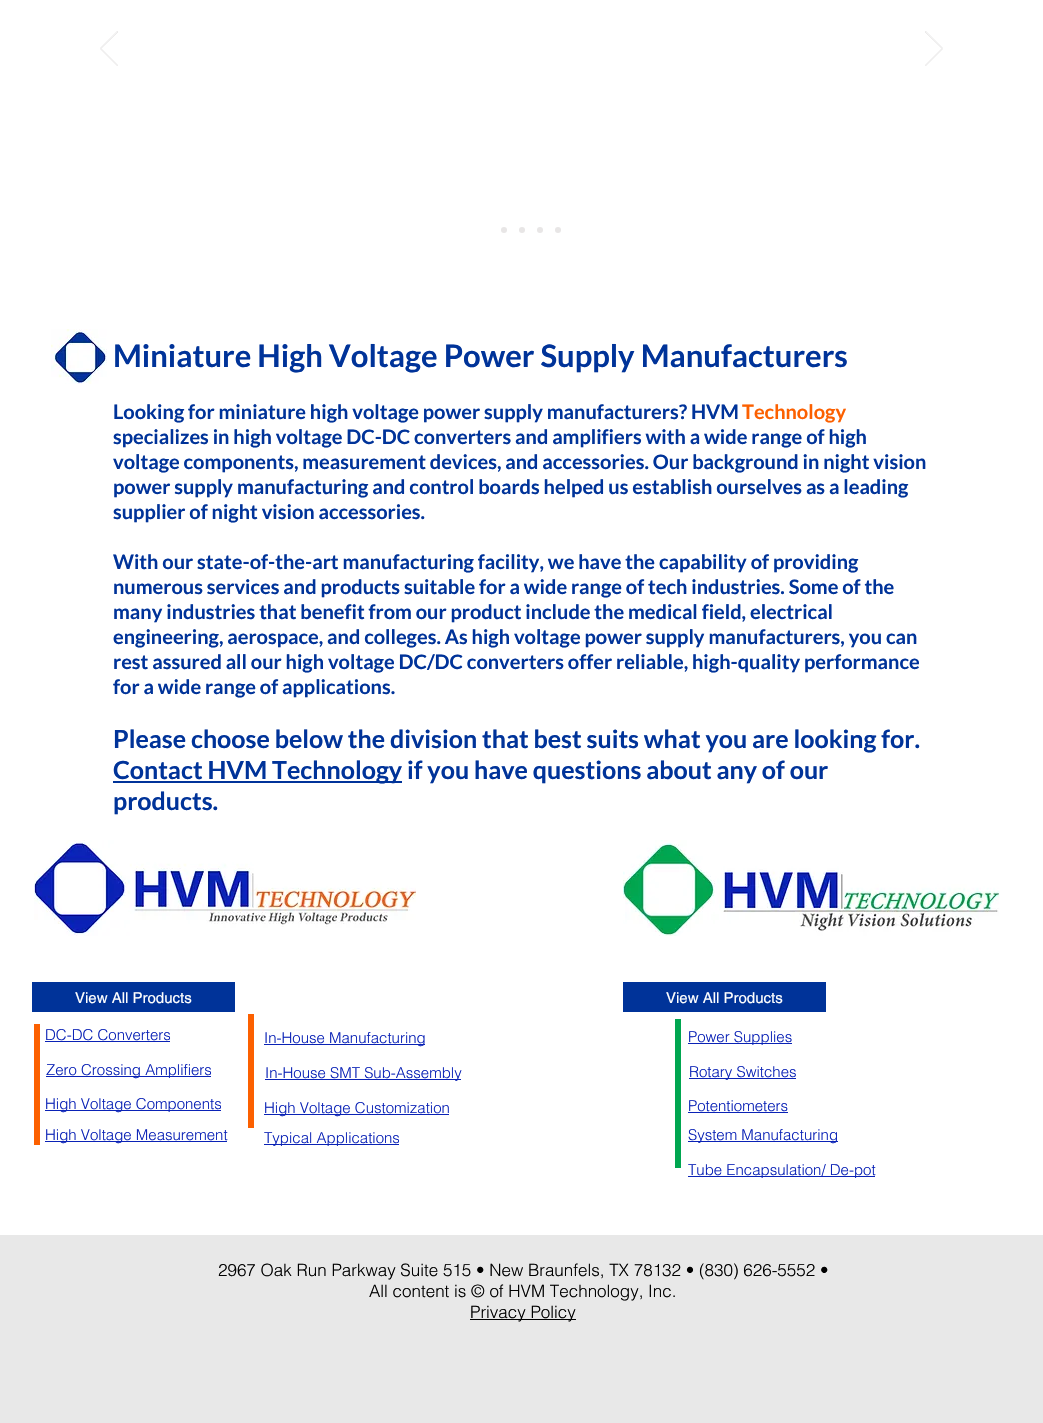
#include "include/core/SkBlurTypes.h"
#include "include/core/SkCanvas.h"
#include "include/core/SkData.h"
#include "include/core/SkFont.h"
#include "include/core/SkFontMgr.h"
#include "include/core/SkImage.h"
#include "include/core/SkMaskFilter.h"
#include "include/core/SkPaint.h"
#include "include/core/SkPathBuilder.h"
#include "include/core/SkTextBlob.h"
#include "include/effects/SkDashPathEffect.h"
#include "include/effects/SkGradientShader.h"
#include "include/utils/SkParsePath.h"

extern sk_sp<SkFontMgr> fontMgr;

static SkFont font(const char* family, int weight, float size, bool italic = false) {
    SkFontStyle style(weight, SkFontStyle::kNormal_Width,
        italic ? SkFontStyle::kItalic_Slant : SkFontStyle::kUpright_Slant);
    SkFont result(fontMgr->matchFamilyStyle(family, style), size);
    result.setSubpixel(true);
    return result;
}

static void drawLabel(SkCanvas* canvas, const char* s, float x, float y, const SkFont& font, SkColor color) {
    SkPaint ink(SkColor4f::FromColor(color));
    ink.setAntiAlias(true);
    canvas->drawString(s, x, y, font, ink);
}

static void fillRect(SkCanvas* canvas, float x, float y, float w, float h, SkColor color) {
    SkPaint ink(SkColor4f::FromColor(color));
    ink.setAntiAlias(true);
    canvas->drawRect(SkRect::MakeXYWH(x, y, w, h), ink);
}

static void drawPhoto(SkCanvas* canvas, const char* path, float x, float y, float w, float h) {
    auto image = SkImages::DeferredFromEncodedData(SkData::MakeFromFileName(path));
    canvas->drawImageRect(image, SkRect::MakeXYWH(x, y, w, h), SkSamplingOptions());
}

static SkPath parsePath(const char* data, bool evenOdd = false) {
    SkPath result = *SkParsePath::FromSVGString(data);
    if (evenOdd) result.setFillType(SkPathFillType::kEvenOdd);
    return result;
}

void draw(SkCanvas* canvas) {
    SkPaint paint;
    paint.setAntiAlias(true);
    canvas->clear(0xFFFFFFFF);
    canvas->save();
    canvas->clipRect(SkRect::MakeXYWH(100, 31, 18, 35));
    paint.setStroke(true);
    paint.setStrokeWidth(0.9f);
    paint.setColor(0xFFE8E6E6);
    canvas->drawPath(parsePath("M117.5 66L100 48.5L117.5 31L118 32L101 48.5L118 65.5Z"), paint);
    canvas->restore();
    canvas->save();
    canvas->clipRect(SkRect::MakeXYWH(925, 31, 18, 35));
    canvas->drawPath(parsePath("M925.5 66L943 48.5L925.5 31L925 32L942 48.5L925 65.5Z"), paint);
    canvas->restore();
    paint.setStroke(false);
    canvas->drawCircle(504, 230, 3, paint);
    canvas->drawCircle(522, 230, 3, paint);
    canvas->drawCircle(540, 230, 3, paint);
    canvas->drawCircle(558, 230, 3, paint);
    drawPhoto(canvas, "assets/img1.png", 51, 329, 56, 55);
    SkFont font1 = font("Lato", 700, 31);
    drawLabel(canvas, "Miniature High Voltage Power Supply Manufacturers", 113, 367, font1, 0xFF003399);
    SkFont font2 = font("Lato", 700, 20);
    drawLabel(canvas, "Looking for miniature high voltage power supply manufacturers? HVM", 113, 419, font2, 0xFF003399);
    drawLabel(canvas, "Technology", 742, 419, font2, 0xFFFC6000);
    drawLabel(canvas, "specializes in high voltage DC-DC converters and amplifiers with a wide range of high", 113, 444, font2, 0xFF003399);
    drawLabel(canvas, "voltage components, measurement devices, and accessories. Our background in night vision", 113, 469, font2, 0xFF003399);
    drawLabel(canvas, "power supply manufacturing and control boards helped us establish ourselves as a leading", 113, 494, font2, 0xFF003399);
    drawLabel(canvas, "supplier of night vision accessories.", 113, 519, font2, 0xFF003399);
    drawLabel(canvas, "With our state-of-the-art manufacturing facility, we have the capability of providing", 113, 569, font2, 0xFF003399);
    drawLabel(canvas, "numerous services and products suitable for a wide range of tech industries. Some of the", 113, 594, font2, 0xFF003399);
    drawLabel(canvas, "many industries that benefit from our product include the medical field, electrical", 113, 619, font2, 0xFF003399);
    drawLabel(canvas, "engineering, aerospace, and colleges. As high voltage power supply manufacturers, you can", 113, 644, font2, 0xFF003399);
    drawLabel(canvas, "rest assured all our high voltage DC/DC converters offer reliable, high-quality performance", 113, 669, font2, 0xFF003399);
    drawLabel(canvas, "for a wide range of applications.", 113, 694, font2, 0xFF003399);
    SkFont font3 = font("Lato", 700, 25);
    drawLabel(canvas, "Please choose below the division that best suits what you are looking for.", 113, 748, font3, 0xFF003399);
    fillRect(canvas, 113, 781, 289, 2, 0xFF003399);
    drawLabel(canvas, "Contact HVM Technology if you have questions about any of our", 113, 779, font3, 0xFF003399);
    drawLabel(canvas, "products.", 113, 810, font3, 0xFF003399);
    drawPhoto(canvas, "assets/img2.png", 34, 840, 382, 96);
    drawPhoto(canvas, "assets/img3.png", 623, 840, 377, 96);
    fillRect(canvas, 32, 982, 203, 30, 0xFF003399);
    SkFont font4 = font("helvetica", 400, 15);
    drawLabel(canvas, "View All Products", 75, 1003, font4, 0xFFFFFFFF);
    fillRect(canvas, 623, 982, 203, 30, 0xFF003399);
    drawLabel(canvas, "View All Products", 666, 1003, font4, 0xFFFFFFFF);
    fillRect(canvas, 34, 1024, 6, 121, 0xFFFC6000);
    SkFont font5 = font("helvetica", 300, 15);
    drawLabel(canvas, "DC-DC Converters", 45, 1040, font5, 0xFF0A22B6);
    fillRect(canvas, 45, 1041, 125, 1, 0xFF0A22B6);
    fillRect(canvas, 248, 1014, 6, 114, 0xFFFC6000);
    fillRect(canvas, 264, 1044, 161, 1, 0xFF0A22B6);
    drawLabel(canvas, "In-House Manufacturing", 264, 1043, font5, 0xFF0A22B6);
    fillRect(canvas, 675, 1019, 6, 149, 0xFF00A650);
    fillRect(canvas, 688, 1043, 104, 1, 0xFF0A22B6);
    drawLabel(canvas, "Power Supplies", 688, 1042, font5, 0xFF0A22B6);
    fillRect(canvas, 46, 1076, 165, 1, 0xFF0A22B6);
    drawLabel(canvas, "Zero Crossing Amplifiers", 46, 1075, font5, 0xFF0A22B6);
    fillRect(canvas, 265, 1079, 196, 1, 0xFF0A22B6);
    drawLabel(canvas, "In-House SMT Sub-Assembly", 265, 1078, font5, 0xFF0A22B6);
    fillRect(canvas, 689, 1078, 107, 1, 0xFF0A22B6);
    drawLabel(canvas, "Rotary Switches", 689, 1077, font5, 0xFF0A22B6);
    fillRect(canvas, 45, 1110, 176, 1, 0xFF0A22B6);
    drawLabel(canvas, "High Voltage Components", 45, 1109, font5, 0xFF0A22B6);
    fillRect(canvas, 264, 1114, 185, 1, 0xFF0A22B6);
    drawLabel(canvas, "High Voltage Customization", 264, 1113, font5, 0xFF0A22B6);
    drawLabel(canvas, "Potentiometers", 688, 1111, font5, 0xFF0A22B6);
    fillRect(canvas, 688, 1112, 100, 1, 0xFF0A22B6);
    fillRect(canvas, 45, 1141, 182, 1, 0xFF0A22B6);
    drawLabel(canvas, "High Voltage Measurement", 45, 1140, font5, 0xFF0A22B6);
    fillRect(canvas, 264, 1144, 135, 1, 0xFF0A22B6);
    drawLabel(canvas, "Typical Applications", 264, 1143, font5, 0xFF0A22B6);
    fillRect(canvas, 688, 1141, 150, 1, 0xFF0A22B6);
    drawLabel(canvas, "System Manufacturing", 688, 1140, font5, 0xFF0A22B6);
    fillRect(canvas, 688, 1176, 187, 1, 0xFF0A22B6);
    drawLabel(canvas, "Tube Encapsulation/ De-pot", 688, 1175, font5, 0xFF0A22B6);
    fillRect(canvas, 0, 1235, 1043, 188, 0xFFE8E8E8);
    SkFont font6 = font("helvetica", 300, 17);
    drawLabel(canvas, "2967 Oak Run Parkway Suite 515 • New Braunfels, TX 78132 • (830) 626-5552 •", 218, 1276, font6, 0xFF000000);
    drawLabel(canvas, "All content is © of HVM Technology, Inc.", 369, 1297, font6, 0xFF000000);
    fillRect(canvas, 470, 1319, 106, 1, 0xFF000000);
    drawLabel(canvas, "Privacy Policy", 470, 1318, font6, 0xFF000000);
}
